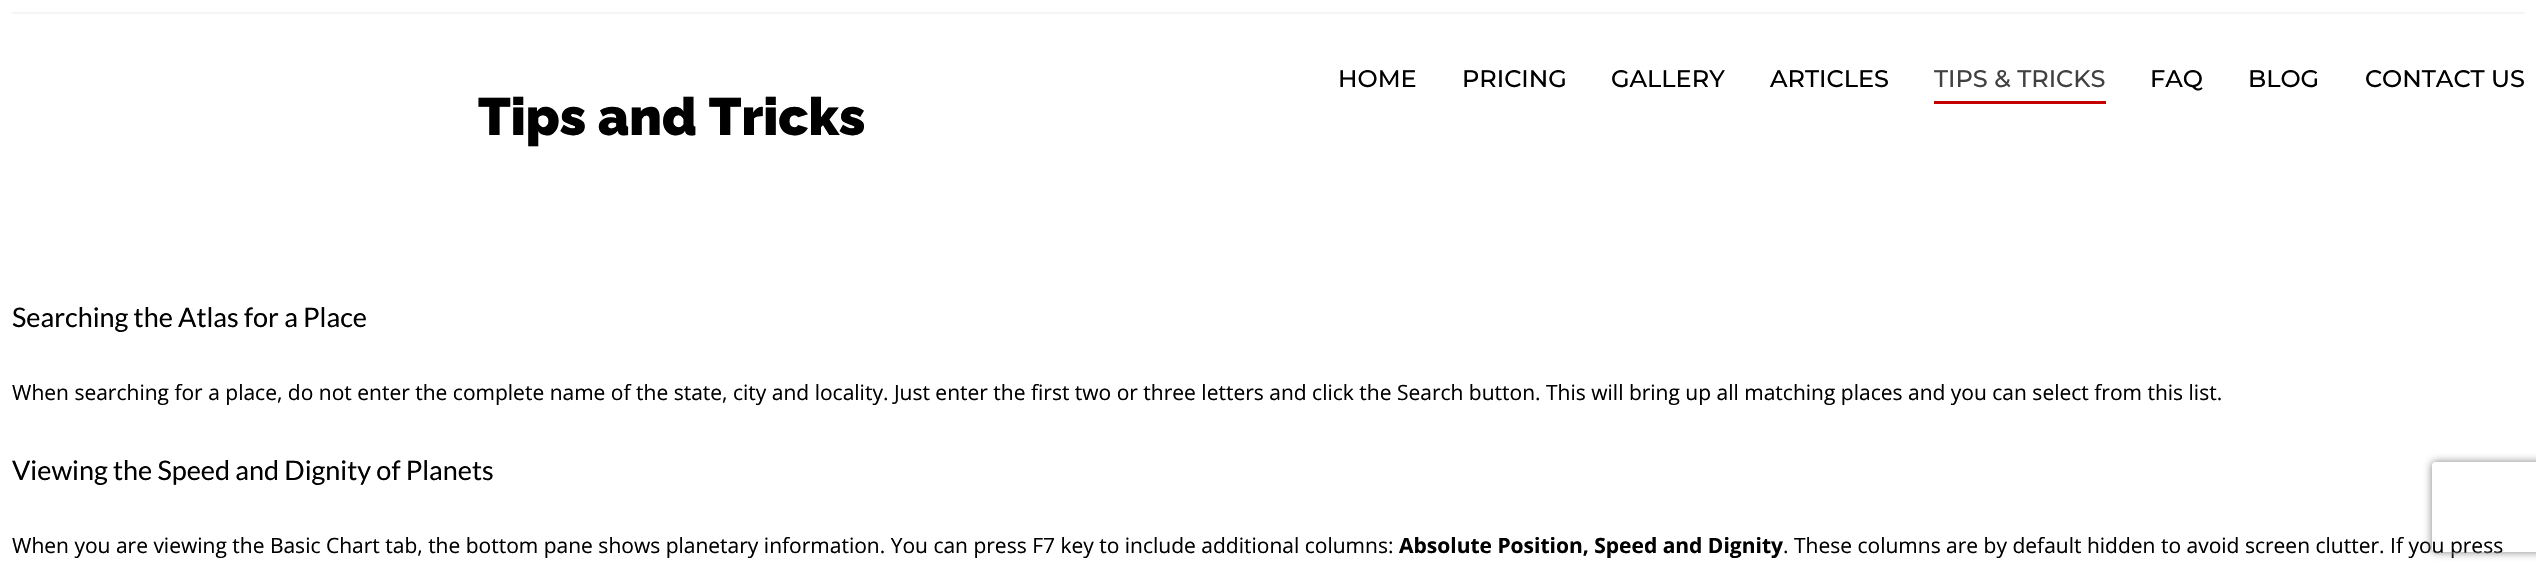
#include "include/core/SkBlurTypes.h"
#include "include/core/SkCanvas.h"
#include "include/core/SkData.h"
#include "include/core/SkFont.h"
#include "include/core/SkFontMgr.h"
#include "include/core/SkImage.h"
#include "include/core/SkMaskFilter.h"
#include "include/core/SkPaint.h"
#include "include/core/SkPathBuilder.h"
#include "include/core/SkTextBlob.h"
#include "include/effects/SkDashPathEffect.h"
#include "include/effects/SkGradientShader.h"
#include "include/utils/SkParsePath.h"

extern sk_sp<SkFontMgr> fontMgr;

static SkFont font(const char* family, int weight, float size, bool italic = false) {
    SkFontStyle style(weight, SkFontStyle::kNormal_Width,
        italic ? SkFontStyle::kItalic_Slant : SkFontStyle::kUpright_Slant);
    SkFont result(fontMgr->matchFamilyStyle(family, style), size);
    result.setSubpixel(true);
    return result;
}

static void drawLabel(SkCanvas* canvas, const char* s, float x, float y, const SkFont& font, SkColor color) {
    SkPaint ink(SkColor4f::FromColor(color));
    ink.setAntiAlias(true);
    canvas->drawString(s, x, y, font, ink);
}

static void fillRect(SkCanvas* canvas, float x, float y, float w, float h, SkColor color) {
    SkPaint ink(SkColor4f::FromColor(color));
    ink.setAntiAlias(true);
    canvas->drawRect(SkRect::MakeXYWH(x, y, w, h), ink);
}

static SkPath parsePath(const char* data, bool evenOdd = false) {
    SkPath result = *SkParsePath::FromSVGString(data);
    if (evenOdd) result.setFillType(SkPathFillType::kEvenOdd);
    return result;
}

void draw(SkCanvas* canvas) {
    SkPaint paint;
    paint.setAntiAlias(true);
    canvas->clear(0xFFFFFFFF);
    fillRect(canvas, 12, 12, 2513, 2, 0xFFF5F5F5);
    SkFont font1 = font("Montserrat", 100, 24);
    drawLabel(canvas, "HOME", 1338, 87, font1, 0xFF000000);
    drawLabel(canvas, "PRICING", 1462, 87, font1, 0xFF000000);
    drawLabel(canvas, "GALLERY", 1611, 87, font1, 0xFF000000);
    drawLabel(canvas, "ARTICLES", 1770, 87, font1, 0xFF000000);
    drawLabel(canvas, "TIPS & TRICKS", 1934, 87, font1, 0xFF424141);
    fillRect(canvas, 1934, 101, 172, 3, 0xFFC60001);
    drawLabel(canvas, "FAQ", 2150, 87, font1, 0xFF000000);
    drawLabel(canvas, "BLOG", 2248, 87, font1, 0xFF000000);
    drawLabel(canvas, "CONTACT US", 2365, 87, font1, 0xFF000000);
    SkFont font2 = font("Raleway", 900, 52.5f);
    drawLabel(canvas, "Tips and Tricks", 478, 135, font2, 0xFF000000);
    SkFont font3 = font("Lato", 400, 27);
    drawLabel(canvas, "Searching the Atlas for a Place", 12, 327, font3, 0xFF000000);
    SkFont font4 = font("Open Sans", 400, 21);
    drawLabel(canvas, "When searching for a place, do not enter the complete name of the state, city and locality. Just enter the first two or three letters and click the Search button. This will bring up all matching places and you can select from this list.", 12, 400, font4, 0xFF000000);
    drawLabel(canvas, "Viewing the Speed and Dignity of Planets", 12, 480, font3, 0xFF000000);
    drawLabel(canvas, "When you are viewing the Basic Chart tab, the bottom pane shows planetary information. You can press F7 key to include additional columns:", 12, 553, font4, 0xFF000000);
    SkFont font5 = font("Open Sans", 700, 21);
    drawLabel(canvas, "Absolute Position, Speed and Dignity", 1399, 553, font5, 0xFF000000);
    drawLabel(canvas, ". These columns are by default hidden to avoid screen clutter. If you press", 1783, 553, font4, 0xFF000000);
    canvas->save();
    canvas->clipPath(parsePath("M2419 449H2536V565H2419ZM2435 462H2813C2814.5 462 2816 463.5 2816 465V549C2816 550.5 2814.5 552 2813 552H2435C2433.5 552 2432 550.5 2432 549V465C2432 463.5 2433.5 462 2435 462Z", true), true);
    paint.setColor(0xFF808080);
    paint.setMaskFilter(SkMaskFilter::MakeBlur(kNormal_SkBlurStyle, 4));
    canvas->drawRoundRect(SkRect::MakeXYWH(2432, 462, 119, 90), 3, 3, paint);
    paint.setMaskFilter(nullptr);
    canvas->restore();
}
